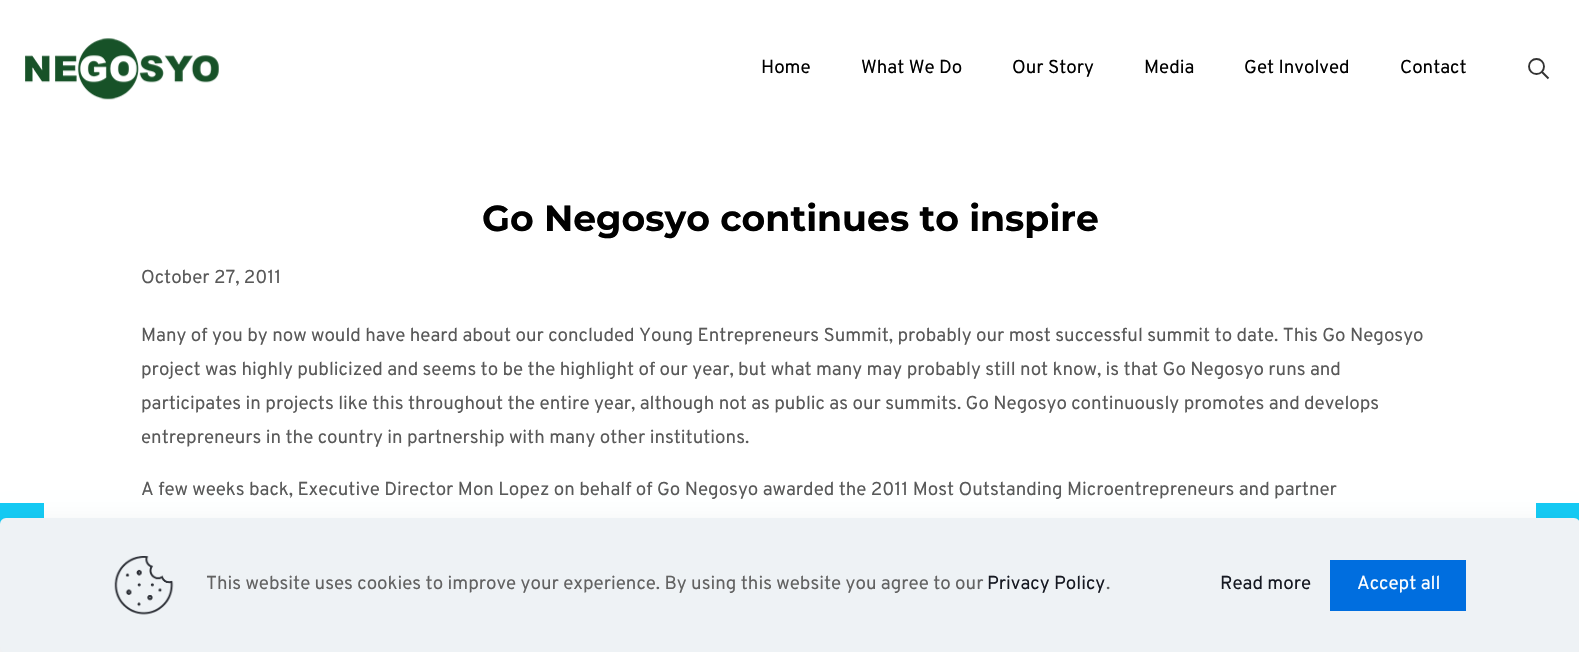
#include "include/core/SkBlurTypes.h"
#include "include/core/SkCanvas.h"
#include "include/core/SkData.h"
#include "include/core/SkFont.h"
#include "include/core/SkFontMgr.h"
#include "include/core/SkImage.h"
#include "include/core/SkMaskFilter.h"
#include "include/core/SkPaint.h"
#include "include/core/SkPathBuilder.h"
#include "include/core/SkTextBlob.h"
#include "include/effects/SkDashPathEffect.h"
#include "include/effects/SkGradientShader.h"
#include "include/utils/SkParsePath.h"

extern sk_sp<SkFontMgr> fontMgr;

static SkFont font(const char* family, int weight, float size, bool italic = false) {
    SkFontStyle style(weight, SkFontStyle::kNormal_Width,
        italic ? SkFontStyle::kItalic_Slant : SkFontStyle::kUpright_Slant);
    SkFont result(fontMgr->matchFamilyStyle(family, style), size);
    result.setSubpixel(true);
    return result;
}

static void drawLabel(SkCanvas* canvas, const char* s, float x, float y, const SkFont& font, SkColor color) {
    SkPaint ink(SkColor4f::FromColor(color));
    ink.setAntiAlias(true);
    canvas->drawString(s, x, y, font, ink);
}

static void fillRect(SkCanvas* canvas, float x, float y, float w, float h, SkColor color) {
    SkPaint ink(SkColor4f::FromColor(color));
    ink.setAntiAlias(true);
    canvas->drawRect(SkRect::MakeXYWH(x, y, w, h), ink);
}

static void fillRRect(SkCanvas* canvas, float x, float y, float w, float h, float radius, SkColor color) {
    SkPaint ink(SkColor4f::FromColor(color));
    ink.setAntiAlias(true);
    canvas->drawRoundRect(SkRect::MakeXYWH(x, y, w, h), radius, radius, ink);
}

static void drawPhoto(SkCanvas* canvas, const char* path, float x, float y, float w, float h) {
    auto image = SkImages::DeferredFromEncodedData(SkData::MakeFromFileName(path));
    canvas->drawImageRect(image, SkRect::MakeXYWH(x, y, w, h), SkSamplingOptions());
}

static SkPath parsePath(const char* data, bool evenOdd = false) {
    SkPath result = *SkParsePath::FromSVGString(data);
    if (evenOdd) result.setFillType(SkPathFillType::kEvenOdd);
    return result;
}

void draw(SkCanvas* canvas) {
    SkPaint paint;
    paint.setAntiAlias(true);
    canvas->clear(0xFFFFFFFF);
    drawPhoto(canvas, "assets/img1.png", 25, 38, 194, 62);
    SkFont font1 = font("Overpass", 400, 18.75f);
    drawLabel(canvas, "Home", 761, 73, font1, 0xFF000000);
    drawLabel(canvas, "What We Do", 861, 73, font1, 0xFF000000);
    drawLabel(canvas, "Our Story", 1012, 73, font1, 0xFF000000);
    drawLabel(canvas, "Media", 1144, 73, font1, 0xFF000000);
    drawLabel(canvas, "Get Involved", 1244, 73, font1, 0xFF000000);
    drawLabel(canvas, "Contact", 1400, 73, font1, 0xFF000000);
    paint.setStroke(true);
    paint.setStrokeWidth(1.9f);
    paint.setColor(0xFF333333);
    canvas->drawCircle(1536.5f, 66.5f, 7.5f, paint);
    canvas->drawPath(parsePath("M1542 72L1548.5 78.5"), paint);
    SkFont font2 = font("Montserrat", 700, 36.25f);
    drawLabel(canvas, "Go Negosyo continues to inspire", 482, 231, font2, 0xFF000000);
    drawLabel(canvas, "October 27, 2011", 141, 283, font1, 0xFF595959);
    drawLabel(canvas, "Many of you by now would have heard about our concluded Young Entrepreneurs Summit, probably our most successful summit to date. This Go Negosyo", 141, 341, font1, 0xFF595959);
    drawLabel(canvas, "project was highly publicized and seems to be the highlight of our year, but what many may probably still not know, is that Go Negosyo runs and", 141, 375, font1, 0xFF595959);
    drawLabel(canvas, "participates in projects like this throughout the entire year, although not as public as our summits. Go Negosyo continuously promotes and develops", 141, 409, font1, 0xFF595959);
    drawLabel(canvas, "entrepreneurs in the country in partnership with many other institutions.", 141, 443, font1, 0xFF595959);
    drawLabel(canvas, "A few weeks back, Executive Director Mon Lopez on behalf of Go Negosyo awarded the 2011 Most Outstanding Microentrepreneurs and partner", 141, 495, font1, 0xFF595959);
    fillRect(canvas, 0, 503, 44, 21, 0xFF14CAF4);
    fillRect(canvas, 1536, 503, 43, 18, 0xFF14CAF4);
    paint.setStroke(false);
    paint.setColor(0x21010727);
    paint.setMaskFilter(SkMaskFilter::MakeBlur(kNormal_SkBlurStyle, 19));
    canvas->drawRoundRect(SkRect::MakeXYWH(0, 536, 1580, 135), 6, 6, paint);
    paint.setMaskFilter(nullptr);
    fillRRect(canvas, 0, 518, 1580, 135, 6, 0xFFEEF2F5);
    drawPhoto(canvas, "assets/img2.png", 114, 556, 60, 59);
    drawLabel(canvas, "This website uses cookies to improve your experience. By using this website you agree to our", 206, 589, font1, 0xFF626262);
    drawLabel(canvas, "Privacy Policy", 987, 589, font1, 0xFF161922);
    drawLabel(canvas, ".", 1106, 589, font1, 0xFF626262);
    drawLabel(canvas, "Read more", 1220, 589, font1, 0xFF161922);
    fillRect(canvas, 1330, 560, 136, 51, 0xFF006EDF);
    drawLabel(canvas, "Accept all", 1357, 589, font1, 0xFFFFFFFF);
}
